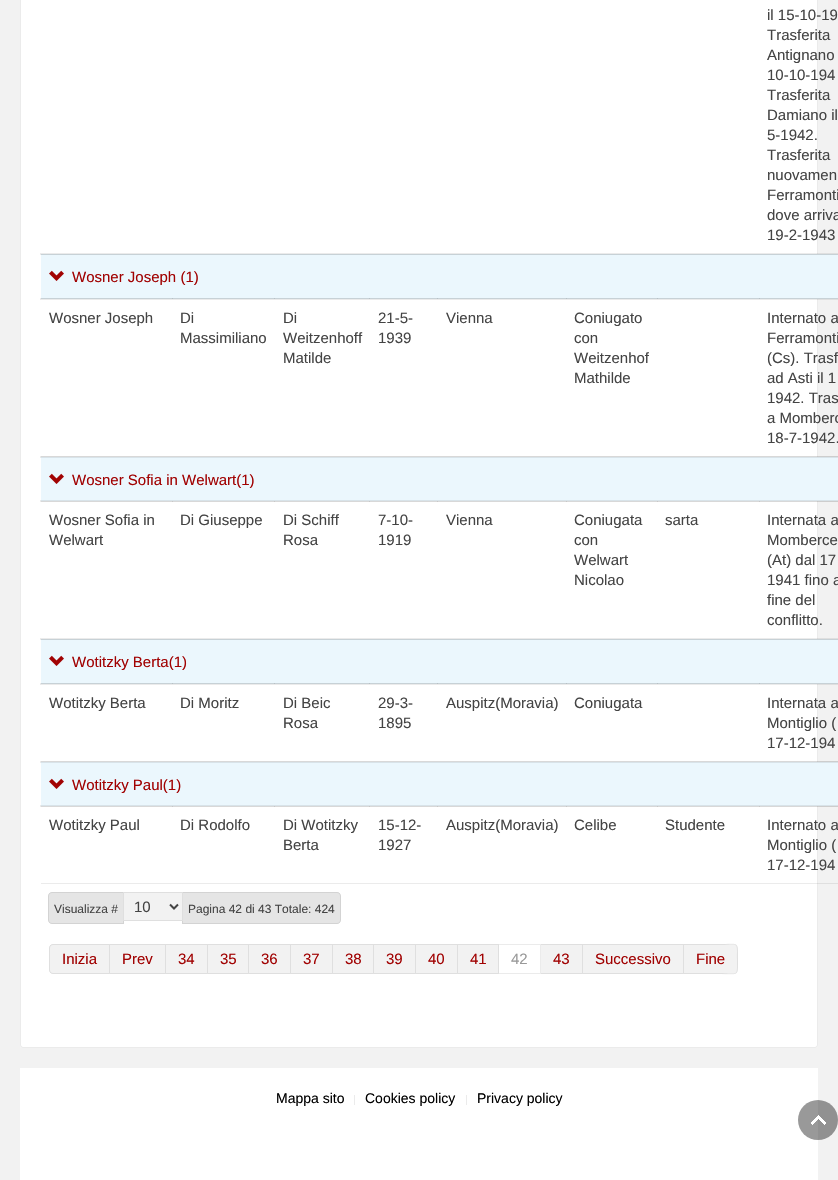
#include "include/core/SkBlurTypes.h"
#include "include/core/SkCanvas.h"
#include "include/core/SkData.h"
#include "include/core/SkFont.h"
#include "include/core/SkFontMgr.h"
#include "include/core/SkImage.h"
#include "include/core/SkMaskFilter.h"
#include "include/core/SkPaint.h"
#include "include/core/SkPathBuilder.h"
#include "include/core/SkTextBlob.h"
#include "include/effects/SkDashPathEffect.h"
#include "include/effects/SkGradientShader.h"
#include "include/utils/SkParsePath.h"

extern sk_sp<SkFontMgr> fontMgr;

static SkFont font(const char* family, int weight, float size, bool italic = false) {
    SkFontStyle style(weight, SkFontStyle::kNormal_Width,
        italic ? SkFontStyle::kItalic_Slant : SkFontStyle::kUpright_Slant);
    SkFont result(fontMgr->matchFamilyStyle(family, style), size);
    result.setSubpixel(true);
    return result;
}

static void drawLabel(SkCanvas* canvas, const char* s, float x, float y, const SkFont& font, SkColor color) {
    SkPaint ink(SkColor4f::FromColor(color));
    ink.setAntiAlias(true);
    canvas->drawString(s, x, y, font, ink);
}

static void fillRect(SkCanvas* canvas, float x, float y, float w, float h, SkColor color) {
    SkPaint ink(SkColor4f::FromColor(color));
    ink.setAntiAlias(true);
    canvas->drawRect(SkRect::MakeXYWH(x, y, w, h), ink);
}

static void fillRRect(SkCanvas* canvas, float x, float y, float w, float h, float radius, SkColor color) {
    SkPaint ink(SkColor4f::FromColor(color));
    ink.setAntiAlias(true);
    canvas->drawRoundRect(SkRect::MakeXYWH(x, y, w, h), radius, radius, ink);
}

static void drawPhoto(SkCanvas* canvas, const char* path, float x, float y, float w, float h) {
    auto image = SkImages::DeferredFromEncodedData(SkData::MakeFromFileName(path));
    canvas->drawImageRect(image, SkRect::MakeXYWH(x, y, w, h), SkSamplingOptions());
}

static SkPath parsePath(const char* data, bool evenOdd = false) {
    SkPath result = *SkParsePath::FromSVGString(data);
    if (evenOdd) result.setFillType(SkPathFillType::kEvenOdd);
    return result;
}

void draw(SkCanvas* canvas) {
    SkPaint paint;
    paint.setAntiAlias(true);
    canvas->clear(0xFFF2F2F2);
    fillRRect(canvas, 20, -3, 798, 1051, 3, 0xFFFFFFFF);
    paint.setStroke(true);
    paint.setStrokeWidth(1);
    paint.setColor(0x14000000);
    canvas->drawRoundRect(SkRect::MakeXYWH(20.5f, -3.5f, 797, 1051), 2.5f, 2.5f, paint);
    SkFont font1 = font("Liberation Sans", 400, 15);
    drawLabel(canvas, "il 15-10-19", 767, 20, font1, 0xFF444444);
    drawLabel(canvas, "Trasferita", 767, 40, font1, 0xFF444444);
    drawLabel(canvas, "Antignano", 767, 60, font1, 0xFF444444);
    drawLabel(canvas, "10-10-194", 767, 80, font1, 0xFF444444);
    drawLabel(canvas, "Trasferita", 767, 100, font1, 0xFF444444);
    drawLabel(canvas, "Damiano il", 767, 120, font1, 0xFF444444);
    drawLabel(canvas, "5-1942.", 767, 140, font1, 0xFF444444);
    drawLabel(canvas, "Trasferita", 767, 160, font1, 0xFF444444);
    drawLabel(canvas, "nuovamen", 767, 180, font1, 0xFF444444);
    drawLabel(canvas, "Ferramonti", 767, 200, font1, 0xFF444444);
    drawLabel(canvas, "dove arriva", 767, 220, font1, 0xFF444444);
    drawLabel(canvas, "19-2-1943", 767, 240, font1, 0xFF444444);
    fillRect(canvas, 41, 254, 797, 1, 0xFFD8E3E9);
    fillRect(canvas, 40, 253, 798, 2, 0x14000000);
    fillRect(canvas, 41, 255, 797, 43, 0xFFEBF7FD);
    fillRect(canvas, 41, 298, 797, 1, 0xFFD8E3E9);
    fillRect(canvas, 172, 298, 1, 1, 0xFFC7D1D6);
    fillRect(canvas, 274, 298, 1, 1, 0xFFC7D1D6);
    fillRect(canvas, 369, 298, 1, 1, 0xFFC7D1D6);
    fillRect(canvas, 437, 298, 1, 1, 0xFFC7D1D6);
    fillRect(canvas, 566, 298, 1, 1, 0xFFC7D1D6);
    fillRect(canvas, 657, 298, 1, 1, 0xFFC7D1D6);
    drawPhoto(canvas, "assets/img1.png", 49, 270, 15, 11);
    drawLabel(canvas, "Wosner Joseph (1)", 72, 282, font1, 0xFFA10202);
    fillRect(canvas, 759, 298, 1, 1, 0xFFC7D1D6);
    fillRect(canvas, 40, 298, 798, 2, 0x14000000);
    drawLabel(canvas, "Wosner Joseph", 49, 323, font1, 0xFF444444);
    drawLabel(canvas, "Di", 180, 323, font1, 0xFF444444);
    drawLabel(canvas, "Massimiliano", 180, 343, font1, 0xFF444444);
    drawLabel(canvas, "Di", 283, 323, font1, 0xFF444444);
    drawLabel(canvas, "Weitzenhoff", 283, 343, font1, 0xFF444444);
    drawLabel(canvas, "Matilde", 283, 363, font1, 0xFF444444);
    drawLabel(canvas, "21-5-", 378, 323, font1, 0xFF444444);
    drawLabel(canvas, "1939", 378, 343, font1, 0xFF444444);
    drawLabel(canvas, "Vienna", 446, 323, font1, 0xFF444444);
    drawLabel(canvas, "Coniugato", 574, 323, font1, 0xFF444444);
    drawLabel(canvas, "con", 574, 343, font1, 0xFF444444);
    drawLabel(canvas, "Weitzenhof", 574, 363, font1, 0xFF444444);
    drawLabel(canvas, "Mathilde", 574, 383, font1, 0xFF444444);
    drawLabel(canvas, "Internato a", 767, 323, font1, 0xFF444444);
    drawLabel(canvas, "Ferramonti", 767, 343, font1, 0xFF444444);
    drawLabel(canvas, "(Cs). Trasf", 767, 363, font1, 0xFF444444);
    drawLabel(canvas, "ad Asti il 1", 767, 383, font1, 0xFF444444);
    drawLabel(canvas, "1942. Tras", 767, 403, font1, 0xFF444444);
    drawLabel(canvas, "a Momberc", 767, 423, font1, 0xFF444444);
    drawLabel(canvas, "18-7-1942.", 767, 443, font1, 0xFF444444);
    fillRect(canvas, 41, 457, 797, 44, 0xFFEBF7FD);
    fillRect(canvas, 41, 456, 797, 1, 0x14000000);
    fillRect(canvas, 40, 456, 798, 2, 0x14000000);
    drawPhoto(canvas, "assets/img1.png", 49, 473, 15, 11);
    drawLabel(canvas, "Wosner Sofia in Welwart(1)", 72, 485, font1, 0xFFA10202);
    fillRect(canvas, 759, 501, 79, 1, 0x14000000);
    fillRect(canvas, 657, 501, 103, 1, 0x14000000);
    fillRect(canvas, 566, 501, 92, 1, 0x14000000);
    fillRect(canvas, 437, 501, 130, 1, 0x14000000);
    fillRect(canvas, 369, 501, 69, 1, 0x14000000);
    fillRect(canvas, 274, 501, 96, 1, 0x14000000);
    fillRect(canvas, 172, 501, 103, 1, 0x14000000);
    fillRect(canvas, 41, 501, 132, 1, 0x14000000);
    fillRect(canvas, 40, 500, 798, 2, 0x14000000);
    drawLabel(canvas, "Wosner Sofia in", 49, 525, font1, 0xFF444444);
    drawLabel(canvas, "Welwart", 49, 545, font1, 0xFF444444);
    drawLabel(canvas, "Di Giuseppe", 180, 525, font1, 0xFF444444);
    drawLabel(canvas, "Di Schiff", 283, 525, font1, 0xFF444444);
    drawLabel(canvas, "Rosa", 283, 545, font1, 0xFF444444);
    drawLabel(canvas, "7-10-", 378, 525, font1, 0xFF444444);
    drawLabel(canvas, "1919", 378, 545, font1, 0xFF444444);
    drawLabel(canvas, "Vienna", 446, 525, font1, 0xFF444444);
    drawLabel(canvas, "Coniugata", 574, 525, font1, 0xFF444444);
    drawLabel(canvas, "con", 574, 545, font1, 0xFF444444);
    drawLabel(canvas, "Welwart", 574, 565, font1, 0xFF444444);
    drawLabel(canvas, "Nicolao", 574, 585, font1, 0xFF444444);
    drawLabel(canvas, "sarta", 665, 525, font1, 0xFF444444);
    drawLabel(canvas, "Internata a", 767, 525, font1, 0xFF444444);
    drawLabel(canvas, "Momberce", 767, 545, font1, 0xFF444444);
    drawLabel(canvas, "(At) dal 17", 767, 565, font1, 0xFF444444);
    drawLabel(canvas, "1941 fino a", 767, 585, font1, 0xFF444444);
    drawLabel(canvas, "fine del", 767, 605, font1, 0xFF444444);
    drawLabel(canvas, "conflitto.", 767, 625, font1, 0xFF444444);
    fillRect(canvas, 41, 639, 797, 1, 0xFFD8E3E9);
    fillRect(canvas, 40, 638, 798, 2, 0x14000000);
    fillRect(canvas, 41, 640, 797, 43, 0xFFEBF7FD);
    fillRect(canvas, 41, 683, 797, 1, 0xFFD8E3E9);
    fillRect(canvas, 172, 683, 1, 1, 0xFFC7D1D6);
    fillRect(canvas, 274, 683, 1, 1, 0xFFC7D1D6);
    fillRect(canvas, 369, 683, 1, 1, 0xFFC7D1D6);
    fillRect(canvas, 437, 683, 1, 1, 0xFFC7D1D6);
    fillRect(canvas, 566, 683, 1, 1, 0xFFC7D1D6);
    fillRect(canvas, 657, 683, 1, 1, 0xFFC7D1D6);
    drawPhoto(canvas, "assets/img1.png", 49, 655, 15, 11);
    drawLabel(canvas, "Wotitzky Berta(1)", 72, 667, font1, 0xFFA10202);
    fillRect(canvas, 759, 683, 1, 1, 0xFFC7D1D6);
    fillRect(canvas, 40, 683, 798, 2, 0x14000000);
    drawLabel(canvas, "Wotitzky Berta", 49, 708, font1, 0xFF444444);
    drawLabel(canvas, "Di Moritz", 180, 708, font1, 0xFF444444);
    drawLabel(canvas, "Di Beic", 283, 708, font1, 0xFF444444);
    drawLabel(canvas, "Rosa", 283, 728, font1, 0xFF444444);
    drawLabel(canvas, "29-3-", 378, 708, font1, 0xFF444444);
    drawLabel(canvas, "1895", 378, 728, font1, 0xFF444444);
    drawLabel(canvas, "Auspitz(Moravia)", 446, 708, font1, 0xFF444444);
    drawLabel(canvas, "Coniugata", 574, 708, font1, 0xFF444444);
    drawLabel(canvas, "Internata a", 767, 708, font1, 0xFF444444);
    drawLabel(canvas, "Montiglio (", 767, 728, font1, 0xFF444444);
    drawLabel(canvas, "17-12-194", 767, 748, font1, 0xFF444444);
    fillRect(canvas, 41, 762, 797, 44, 0xFFEBF7FD);
    fillRect(canvas, 41, 761, 797, 1, 0x14000000);
    fillRect(canvas, 40, 761, 798, 2, 0x14000000);
    drawPhoto(canvas, "assets/img1.png", 49, 778, 15, 11);
    drawLabel(canvas, "Wotitzky Paul(1)", 72, 790, font1, 0xFFA10202);
    fillRect(canvas, 759, 806, 79, 1, 0x14000000);
    fillRect(canvas, 657, 806, 103, 1, 0x14000000);
    fillRect(canvas, 566, 806, 92, 1, 0x14000000);
    fillRect(canvas, 437, 806, 130, 1, 0x14000000);
    fillRect(canvas, 369, 806, 69, 1, 0x14000000);
    fillRect(canvas, 274, 806, 96, 1, 0x14000000);
    fillRect(canvas, 172, 806, 103, 1, 0x14000000);
    fillRect(canvas, 41, 806, 132, 1, 0x14000000);
    fillRect(canvas, 40, 805, 798, 2, 0x14000000);
    drawLabel(canvas, "Wotitzky Paul", 49, 830, font1, 0xFF444444);
    drawLabel(canvas, "Di Rodolfo", 180, 830, font1, 0xFF444444);
    drawLabel(canvas, "Di Wotitzky", 283, 830, font1, 0xFF444444);
    drawLabel(canvas, "Berta", 283, 850, font1, 0xFF444444);
    drawLabel(canvas, "15-12-", 378, 830, font1, 0xFF444444);
    drawLabel(canvas, "1927", 378, 850, font1, 0xFF444444);
    drawLabel(canvas, "Auspitz(Moravia)", 446, 830, font1, 0xFF444444);
    drawLabel(canvas, "Celibe", 574, 830, font1, 0xFF444444);
    drawLabel(canvas, "Studente", 665, 830, font1, 0xFF444444);
    drawLabel(canvas, "Internato a", 767, 830, font1, 0xFF444444);
    drawLabel(canvas, "Montiglio (", 767, 850, font1, 0xFF444444);
    drawLabel(canvas, "17-12-194", 767, 870, font1, 0xFF444444);
    fillRect(canvas, 41, 883, 797, 1, 0x14000000);
    paint.setStroke(false);
    paint.setColor(0xFFE5E5E5);
    canvas->drawPath(parsePath("M52 892H124V924H52C50 924 48 922 48 920V896C48 894 50 892 52 892Z"), paint);
    paint.setStroke(true);
    paint.setColor(0x14000000);
    canvas->drawPath(parsePath("M52 892.5H123.5V923.5H52C50 923.5 48.5 922 48.5 920V896C48.5 894 50 892.5 52 892.5Z"), paint);
    SkFont font2 = font("Liberation Sans", 400, 12);
    drawLabel(canvas, "Visualizza #", 54, 913, font2, 0xFF444444);
    paint.setStroke(false);
    paint.setColor(0xFFE5E5E5);
    canvas->drawPath(parsePath("M182 892H337C339 892 341 894 341 896V920C341 922 339 924 337 924H182Z"), paint);
    paint.setStroke(true);
    paint.setColor(0x14000000);
    canvas->drawPath(parsePath("M182.5 892.5H337C339 892.5 340.5 894 340.5 896V920C340.5 922 339 923.5 337 923.5H182.5Z"), paint);
    paint.setStroke(false);
    paint.setColor(0xFFF2F2F2);
    canvas->drawRect(SkRect::MakeXYWH(123.5f, 892.5f, 59, 28), paint);
    paint.setStroke(true);
    paint.setColor(0xFFDFDFDF);
    canvas->drawRect(SkRect::MakeXYWH(123.5f, 892.5f, 59, 28), paint);
    paint.setStrokeWidth(2);
    paint.setColor(0xFF444444);
    canvas->drawPath(parsePath("M170 904.5L174 908.5L178 904.5"), paint);
    drawLabel(canvas, "10", 134, 912, font1, 0xFF444444);
    drawLabel(canvas, "Pagina 42 di 43 Totale: 424", 188, 913, font2, 0xFF444444);
    paint.setStroke(false);
    paint.setColor(0xFFF2F2F2);
    canvas->drawPath(parsePath("M53 944H110V974H53C51 974 49 972 49 970V948C49 946 51 944 53 944Z"), paint);
    paint.setStroke(true);
    paint.setStrokeWidth(1);
    paint.setColor(0x14000000);
    canvas->drawPath(parsePath("M53 944.5H109.5V973.5H53C51 973.5 49.5 972 49.5 970V948C49.5 946 51 944.5 53 944.5Z"), paint);
    drawLabel(canvas, "Inizia", 62, 964, font1, 0xFFA10202);
    fillRect(canvas, 110, 944, 389, 30, 0xFFF2F2F2);
    paint.setStroke(false);
    paint.setColor(0xFFDFDFDF);
    canvas->drawPath(parsePath("M110 944H166L165 945H110Z"), paint);
    paint.setColor(0x14000000);
    canvas->drawPath(parsePath("M166 944V974L165 973V945Z"), paint);
    canvas->drawPath(parsePath("M166 974H110V973H165Z"), paint);
    drawLabel(canvas, "Prev", 122, 964, font1, 0xFFA10202);
    paint.setColor(0xFFDFDFDF);
    canvas->drawPath(parsePath("M166 944H208L207 945H166Z"), paint);
    paint.setColor(0x14000000);
    canvas->drawPath(parsePath("M208 944V974L207 973V945Z"), paint);
    canvas->drawPath(parsePath("M208 974H166V973H207Z"), paint);
    drawLabel(canvas, "34", 178, 964, font1, 0xFFA10202);
    paint.setColor(0xFFDFDFDF);
    canvas->drawPath(parsePath("M208 944H249L248 945H208Z"), paint);
    paint.setColor(0x14000000);
    canvas->drawPath(parsePath("M249 944V974L248 973V945Z"), paint);
    canvas->drawPath(parsePath("M249 974H208V973H248Z"), paint);
    drawLabel(canvas, "35", 220, 964, font1, 0xFFA10202);
    paint.setColor(0xFFDFDFDF);
    canvas->drawPath(parsePath("M249 944H291L290 945H249Z"), paint);
    paint.setColor(0x14000000);
    canvas->drawPath(parsePath("M291 944V974L290 973V945Z"), paint);
    canvas->drawPath(parsePath("M291 974H249V973H290Z"), paint);
    drawLabel(canvas, "36", 261, 964, font1, 0xFFA10202);
    paint.setColor(0xFFDFDFDF);
    canvas->drawPath(parsePath("M291 944H333L332 945H291Z"), paint);
    paint.setColor(0x14000000);
    canvas->drawPath(parsePath("M333 944V974L332 973V945Z"), paint);
    canvas->drawPath(parsePath("M333 974H291V973H332Z"), paint);
    drawLabel(canvas, "37", 303, 964, font1, 0xFFA10202);
    paint.setColor(0xFFDFDFDF);
    canvas->drawPath(parsePath("M333 944H374L373 945H333Z"), paint);
    paint.setColor(0x14000000);
    canvas->drawPath(parsePath("M374 944V974L373 973V945Z"), paint);
    canvas->drawPath(parsePath("M374 974H333V973H373Z"), paint);
    drawLabel(canvas, "38", 345, 964, font1, 0xFFA10202);
    paint.setColor(0xFFDFDFDF);
    canvas->drawPath(parsePath("M374 944H416L415 945H374Z"), paint);
    paint.setColor(0x14000000);
    canvas->drawPath(parsePath("M416 944V974L415 973V945Z"), paint);
    canvas->drawPath(parsePath("M416 974H374V973H415Z"), paint);
    drawLabel(canvas, "39", 386, 964, font1, 0xFFA10202);
    paint.setColor(0xFFDFDFDF);
    canvas->drawPath(parsePath("M416 944H458L457 945H416Z"), paint);
    paint.setColor(0x14000000);
    canvas->drawPath(parsePath("M458 944V974L457 973V945Z"), paint);
    canvas->drawPath(parsePath("M458 974H416V973H457Z"), paint);
    drawLabel(canvas, "40", 428, 964, font1, 0xFFA10202);
    paint.setColor(0xFFDFDFDF);
    canvas->drawPath(parsePath("M458 944H499L498 945H458Z"), paint);
    paint.setColor(0x14000000);
    canvas->drawPath(parsePath("M499 944V974L498 973V945Z"), paint);
    canvas->drawPath(parsePath("M499 974H458V973H498Z"), paint);
    drawLabel(canvas, "41", 470, 964, font1, 0xFFA10202);
    paint.setColor(0xFFEBEBEB);
    canvas->drawPath(parsePath("M499 944H541L540 945H499Z"), paint);
    paint.setColor(0x14000000);
    canvas->drawPath(parsePath("M541 944V974L540 973V945Z"), paint);
    canvas->drawPath(parsePath("M541 974H499V973H540Z"), paint);
    drawLabel(canvas, "42", 511, 964, font1, 0xFF999999);
    fillRect(canvas, 541, 944, 143, 30, 0xFFF2F2F2);
    paint.setColor(0xFFDFDFDF);
    canvas->drawPath(parsePath("M541 944H583L582 945H541Z"), paint);
    paint.setColor(0x14000000);
    canvas->drawPath(parsePath("M583 944V974L582 973V945Z"), paint);
    canvas->drawPath(parsePath("M583 974H541V973H582Z"), paint);
    drawLabel(canvas, "43", 553, 964, font1, 0xFFA10202);
    paint.setColor(0xFFDFDFDF);
    canvas->drawPath(parsePath("M583 944H684L683 945H583Z"), paint);
    paint.setColor(0x14000000);
    canvas->drawPath(parsePath("M684 944V974L683 973V945Z"), paint);
    canvas->drawPath(parsePath("M684 974H583V973H683Z"), paint);
    drawLabel(canvas, "Successivo", 595, 964, font1, 0xFFA10202);
    paint.setColor(0xFFF2F2F2);
    canvas->drawPath(parsePath("M684 944H734C736 944 738 946 738 948V970C738 972 736 974 734 974H684Z"), paint);
    paint.setColor(0x14000000);
    canvas->drawPath(parsePath("M684 944H717C739 944 738 940 738 959C738 978 739 974 717 974H684ZM684 945H717C739 945 737 940 737 959C737 978 739 973 717 973H684Z", true), paint);
    drawLabel(canvas, "Fine", 696, 964, font1, 0xFFA10202);
    fillRect(canvas, 20, 1068, 798, 112, 0xFFFFFFFF);
    SkFont font3 = font("Liberation Sans", 400, 14);
    drawLabel(canvas, "Mappa sito", 276, 1103, font3, 0xFF000000);
    fillRect(canvas, 354, 1095, 1, 10, 0xFFEBEBEB);
    drawLabel(canvas, "Cookies policy", 365, 1103, font3, 0xFF000000);
    fillRect(canvas, 466, 1095, 1, 10, 0xFFEBEBEB);
    drawLabel(canvas, "Privacy policy", 477, 1103, font3, 0xFF000000);
    paint.setColor(0x66000000);
    canvas->drawCircle(818, 1120, 20, paint);
    drawPhoto(canvas, "assets/img2.png", 811, 1115, 15, 10);
}
